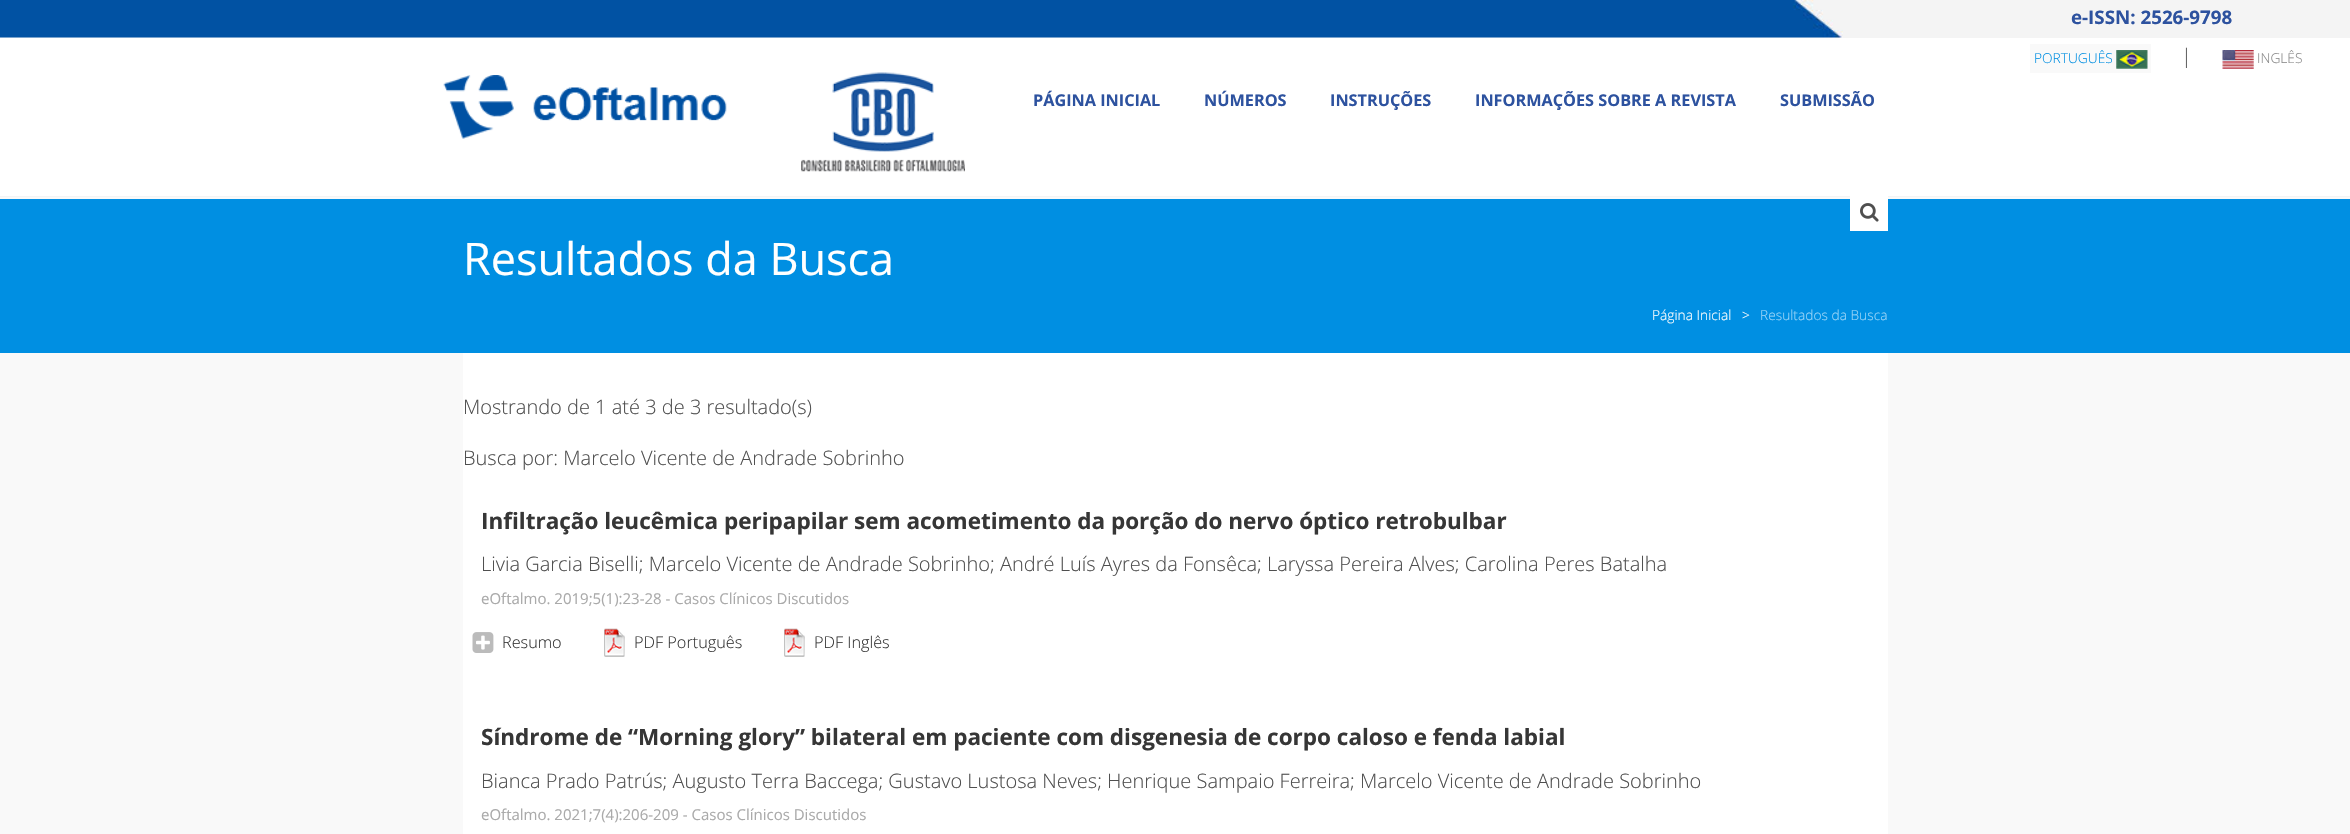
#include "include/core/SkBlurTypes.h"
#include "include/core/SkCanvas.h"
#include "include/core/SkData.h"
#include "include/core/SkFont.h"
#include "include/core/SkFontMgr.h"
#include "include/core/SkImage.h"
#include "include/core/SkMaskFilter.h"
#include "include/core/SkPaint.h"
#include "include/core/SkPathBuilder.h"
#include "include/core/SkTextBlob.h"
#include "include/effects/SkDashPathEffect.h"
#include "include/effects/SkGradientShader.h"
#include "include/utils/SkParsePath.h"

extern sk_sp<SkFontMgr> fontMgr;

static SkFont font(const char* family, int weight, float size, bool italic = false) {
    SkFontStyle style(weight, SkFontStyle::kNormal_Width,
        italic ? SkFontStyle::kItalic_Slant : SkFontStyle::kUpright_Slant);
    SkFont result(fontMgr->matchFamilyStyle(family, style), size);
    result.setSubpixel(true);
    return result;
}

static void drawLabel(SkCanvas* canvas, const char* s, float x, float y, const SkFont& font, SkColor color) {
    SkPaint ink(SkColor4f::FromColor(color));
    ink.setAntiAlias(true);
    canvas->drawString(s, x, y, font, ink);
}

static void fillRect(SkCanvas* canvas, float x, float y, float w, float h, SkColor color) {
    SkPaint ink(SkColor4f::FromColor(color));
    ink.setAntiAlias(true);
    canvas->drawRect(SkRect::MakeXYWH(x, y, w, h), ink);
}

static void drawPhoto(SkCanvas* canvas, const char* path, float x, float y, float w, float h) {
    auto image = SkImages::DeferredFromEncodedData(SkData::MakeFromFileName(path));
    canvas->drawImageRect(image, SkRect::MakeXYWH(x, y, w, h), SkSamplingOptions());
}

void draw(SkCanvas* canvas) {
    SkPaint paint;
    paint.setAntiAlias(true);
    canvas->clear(0xFFFFFFFF);
    fillRect(canvas, 0, 0, 2350, 38, 0xFFF4F4F4);
    drawPhoto(canvas, "assets/img1.png", 0, 0, 1843, 38);
    SkFont font1 = font("Open Sans", 700, 18.75f);
    drawLabel(canvas, "e-ISSN: 2526-9798", 2071, 24, font1, 0xFF2D529F);
    fillRect(canvas, 2030, 44, 121, 29, 0xFFF9F9F9);
    SkFont font2 = font("Open Sans", 300, 13.75f);
    drawLabel(canvas, "PORTUGUÊS", 2034, 63, font2, 0xFF018FE2);
    drawPhoto(canvas, "assets/img2.png", 2116, 50, 32, 19);
    SkFont font3 = font("Open Sans", 300, 20);
    drawLabel(canvas, "|", 2181, 63, font3, 0xFF4F4F4F);
    drawPhoto(canvas, "assets/img3.png", 2222, 50, 32, 19);
    drawLabel(canvas, "INGLÊS", 2257, 63, font2, 0xFF898989);
    drawPhoto(canvas, "assets/img4.png", 443, 75, 284, 64);
    drawPhoto(canvas, "assets/img5.png", 801, 72, 164, 100);
    SkFont font4 = font("Open Sans", 700, 16.25f);
    drawLabel(canvas, "PÁGINA INICIAL", 1033, 106, font4, 0xFF2D529F);
    drawLabel(canvas, "NÚMEROS", 1204, 106, font4, 0xFF2D529F);
    drawLabel(canvas, "INSTRUÇÕES", 1330, 106, font4, 0xFF2D529F);
    drawLabel(canvas, "INFORMAÇÕES SOBRE A REVISTA", 1475, 106, font4, 0xFF2D529F);
    drawLabel(canvas, "SUBMISSÃO", 1780, 106, font4, 0xFF2D529F);
    fillRect(canvas, 0, 197, 2350, 637, 0xFFF9F9F9);
    fillRect(canvas, 0, 196, 2350, 1, 0xFFF4F4F4);
    fillRect(canvas, 0, 199, 2350, 154, 0xFF008FE2);
    fillRect(canvas, 1850, 196, 38, 35, 0xFFFFFFFF);
    drawPhoto(canvas, "assets/img6.png", 1860, 203, 19, 19);
    SkFont font5 = font("Open Sans", 400, 45);
    drawLabel(canvas, "Resultados da Busca", 463, 275, font5, 0xFFFFFFFF);
    drawLabel(canvas, "Página Inicial", 1652, 320, font2, 0xFFFFFFFF);
    drawLabel(canvas, ">", 1742, 320, font2, 0xFFFFFFFF);
    drawLabel(canvas, "Resultados da Busca", 1760, 320, font2, 0xFF9DD6F8);
    fillRect(canvas, 463, 353, 1425, 481, 0xFFFFFFFF);
    drawLabel(canvas, "Mostrando de 1 até 3 de 3 resultado(s)", 463, 414, font3, 0xFF4F4F4F);
    drawLabel(canvas, "Busca por: Marcelo Vicente de Andrade Sobrinho", 463, 465, font3, 0xFF4F4F4F);
    SkFont font6 = font("Open Sans", 700, 22.5f);
    drawLabel(canvas, "Infiltração leucêmica peripapilar sem acometimento da porção do nervo óptico retrobulbar", 481, 529, font6, 0xFF363636);
    drawLabel(canvas, "Livia Garcia Biselli; Marcelo Vicente de Andrade Sobrinho; André Luís Ayres da Fonsêca; Laryssa Pereira Alves; Carolina Peres Batalha", 481, 571, font3, 0xFF4F4F4F);
    SkFont font7 = font("Open Sans", 400, 15);
    drawLabel(canvas, "eOftalmo. 2019;5(1):23-28 - Casos Clínicos Discutidos", 481, 604, font7, 0xFFAAAAAA);
    drawPhoto(canvas, "assets/img7.png", 472, 632, 22, 21);
    SkFont font8 = font("Open Sans", 300, 16.25f);
    drawLabel(canvas, "Resumo", 502, 648, font8, 0xFF363636);
    drawPhoto(canvas, "assets/img8.png", 604, 628, 21, 29);
    drawLabel(canvas, "PDF Português", 634, 648, font8, 0xFF363636);
    drawPhoto(canvas, "assets/img8.png", 784, 628, 21, 29);
    drawLabel(canvas, "PDF Inglês", 814, 648, font8, 0xFF363636);
    drawLabel(canvas, "Síndrome de “Morning glory” bilateral em paciente com disgenesia de corpo caloso e fenda labial", 481, 745, font6, 0xFF363636);
    drawLabel(canvas, "Bianca Prado Patrús; Augusto Terra Baccega; Gustavo Lustosa Neves; Henrique Sampaio Ferreira; Marcelo Vicente de Andrade Sobrinho", 481, 788, font3, 0xFF4F4F4F);
    drawLabel(canvas, "eOftalmo. 2021;7(4):206-209 - Casos Clínicos Discutidos", 481, 820, font7, 0xFFAAAAAA);
}
